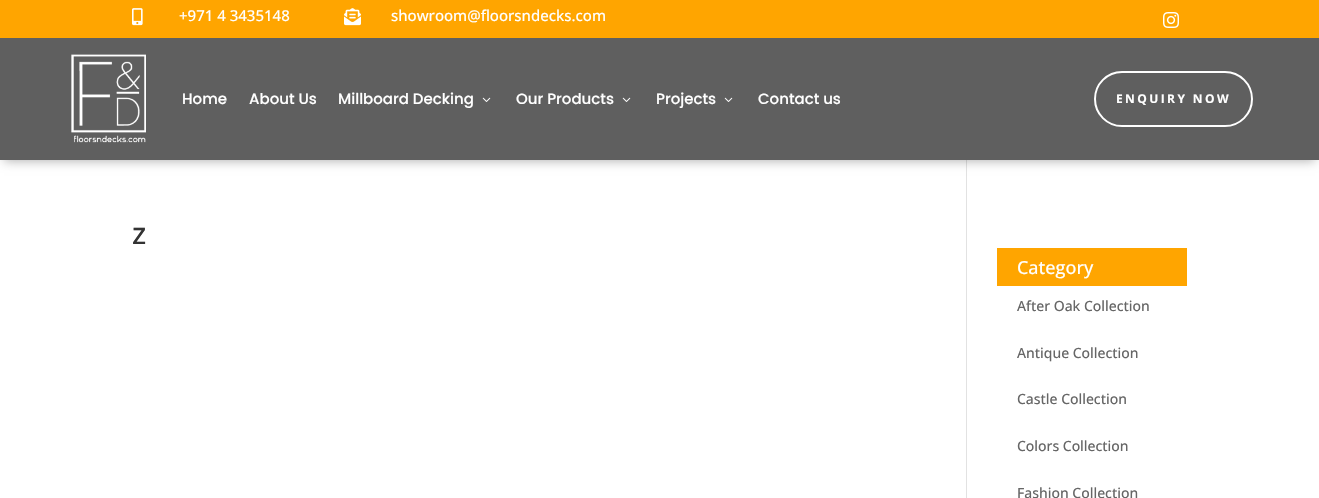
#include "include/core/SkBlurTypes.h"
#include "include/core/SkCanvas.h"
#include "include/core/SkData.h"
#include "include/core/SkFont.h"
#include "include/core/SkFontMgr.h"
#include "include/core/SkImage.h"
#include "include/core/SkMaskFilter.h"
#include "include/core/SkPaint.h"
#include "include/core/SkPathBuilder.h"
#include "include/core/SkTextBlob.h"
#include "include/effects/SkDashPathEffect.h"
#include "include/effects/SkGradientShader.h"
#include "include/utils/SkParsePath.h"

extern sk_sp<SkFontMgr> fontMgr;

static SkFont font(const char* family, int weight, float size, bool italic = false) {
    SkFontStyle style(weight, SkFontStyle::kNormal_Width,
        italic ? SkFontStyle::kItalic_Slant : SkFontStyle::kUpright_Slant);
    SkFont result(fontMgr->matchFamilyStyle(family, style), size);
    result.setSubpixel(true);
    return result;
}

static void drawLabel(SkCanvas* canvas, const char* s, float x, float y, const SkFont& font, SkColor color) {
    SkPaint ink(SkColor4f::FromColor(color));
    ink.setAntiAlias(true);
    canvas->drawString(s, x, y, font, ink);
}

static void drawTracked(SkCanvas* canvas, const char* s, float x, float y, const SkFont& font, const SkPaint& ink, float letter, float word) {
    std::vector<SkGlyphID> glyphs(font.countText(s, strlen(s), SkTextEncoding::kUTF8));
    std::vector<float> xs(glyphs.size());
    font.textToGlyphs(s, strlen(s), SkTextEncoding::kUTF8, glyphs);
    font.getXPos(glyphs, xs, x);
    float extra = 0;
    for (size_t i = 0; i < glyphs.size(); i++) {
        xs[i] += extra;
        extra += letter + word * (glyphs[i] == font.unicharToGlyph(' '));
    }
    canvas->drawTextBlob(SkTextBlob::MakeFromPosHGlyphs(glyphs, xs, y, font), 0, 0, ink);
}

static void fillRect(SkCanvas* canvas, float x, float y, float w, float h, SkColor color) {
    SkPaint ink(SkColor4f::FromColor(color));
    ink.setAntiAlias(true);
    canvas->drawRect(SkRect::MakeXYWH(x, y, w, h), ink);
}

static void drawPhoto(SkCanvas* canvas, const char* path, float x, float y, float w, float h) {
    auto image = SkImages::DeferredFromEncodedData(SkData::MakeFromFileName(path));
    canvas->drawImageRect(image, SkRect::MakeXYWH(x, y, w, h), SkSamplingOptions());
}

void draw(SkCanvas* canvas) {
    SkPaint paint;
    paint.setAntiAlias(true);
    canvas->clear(0xFFFFFFFF);
    fillRect(canvas, 966, 160, 1, 338, 0xFFE2E2E2);
    paint.setColor(0x4D000000);
    paint.setMaskFilter(SkMaskFilter::MakeBlur(kNormal_SkBlurStyle, 5));
    canvas->drawRect(SkRect::MakeXYWH(4, 9, 1311, 152), paint);
    paint.setMaskFilter(nullptr);
    fillRect(canvas, 0, 0, 1319, 38, 0xFFFFA500);
    drawPhoto(canvas, "assets/img1.png", 132, 8, 11, 18);
    SkFont font1 = font("Open Sans", 500, 15);
    drawLabel(canvas, "+971 4 3435148", 179, 21, font1, 0xFFFFFFFF);
    drawPhoto(canvas, "assets/img2.png", 344, 8, 17, 18);
    drawLabel(canvas, "showroom@floorsndecks.com", 391, 21, font1, 0xFFFFFFFF);
    drawPhoto(canvas, "assets/img3.png", 1163, 12, 16, 16);
    fillRect(canvas, 0, 38, 1319, 122, 0xFF5F5F5F);
    drawPhoto(canvas, "assets/img4.png", 71, 54, 75, 89);
    SkFont font2 = font("Poppins", 500, 15);
    drawLabel(canvas, "Home", 182, 104, font2, 0xFFFFFFFF);
    drawLabel(canvas, "About Us", 249, 104, font2, 0xFFFFFFFF);
    drawLabel(canvas, "Millboard Decking", 338, 104, font2, 0xFFFFFFFF);
    drawPhoto(canvas, "assets/img5.png", 482, 97, 9, 5);
    drawLabel(canvas, "Our Products", 516, 104, font2, 0xFFFFFFFF);
    drawPhoto(canvas, "assets/img5.png", 622, 97, 9, 5);
    drawLabel(canvas, "Projects", 656, 104, font2, 0xFFFFFFFF);
    drawPhoto(canvas, "assets/img5.png", 724, 97, 9, 5);
    drawLabel(canvas, "Contact us", 758, 104, font2, 0xFFFFFFFF);
    paint.setStroke(true);
    paint.setStrokeWidth(2);
    paint.setColor(0xFFFFFFFF);
    canvas->drawRoundRect(SkRect::MakeXYWH(1095, 72, 157, 54), 27, 27, paint);
    SkFont font3 = font("Open Sans", 700, 12);
    paint.setStroke(false);
    drawTracked(canvas, "ENQUIRY NOW", 1116, 103, font3, paint, 2.4f, 0);
    SkFont font4 = font("Open Sans", 500, 30);
    drawLabel(canvas, "z", 132, 244, font4, 0xFF333333);
    fillRect(canvas, 997, 248, 190, 38, 0xFFFFA500);
    SkFont font5 = font("Open Sans", 500, 18);
    drawLabel(canvas, "Category", 1017, 274, font5, 0xFFFFFFFF);
    SkFont font6 = font("Open Sans", 500, 14);
    drawLabel(canvas, "After Oak Collection", 1017, 311, font6, 0xFF666666);
    drawLabel(canvas, "Antique Collection", 1017, 358, font6, 0xFF666666);
    drawLabel(canvas, "Castle Collection", 1017, 404, font6, 0xFF666666);
    drawLabel(canvas, "Colors Collection", 1017, 451, font6, 0xFF666666);
    drawLabel(canvas, "Fashion Collection", 1017, 498, font6, 0xFF666666);
}
